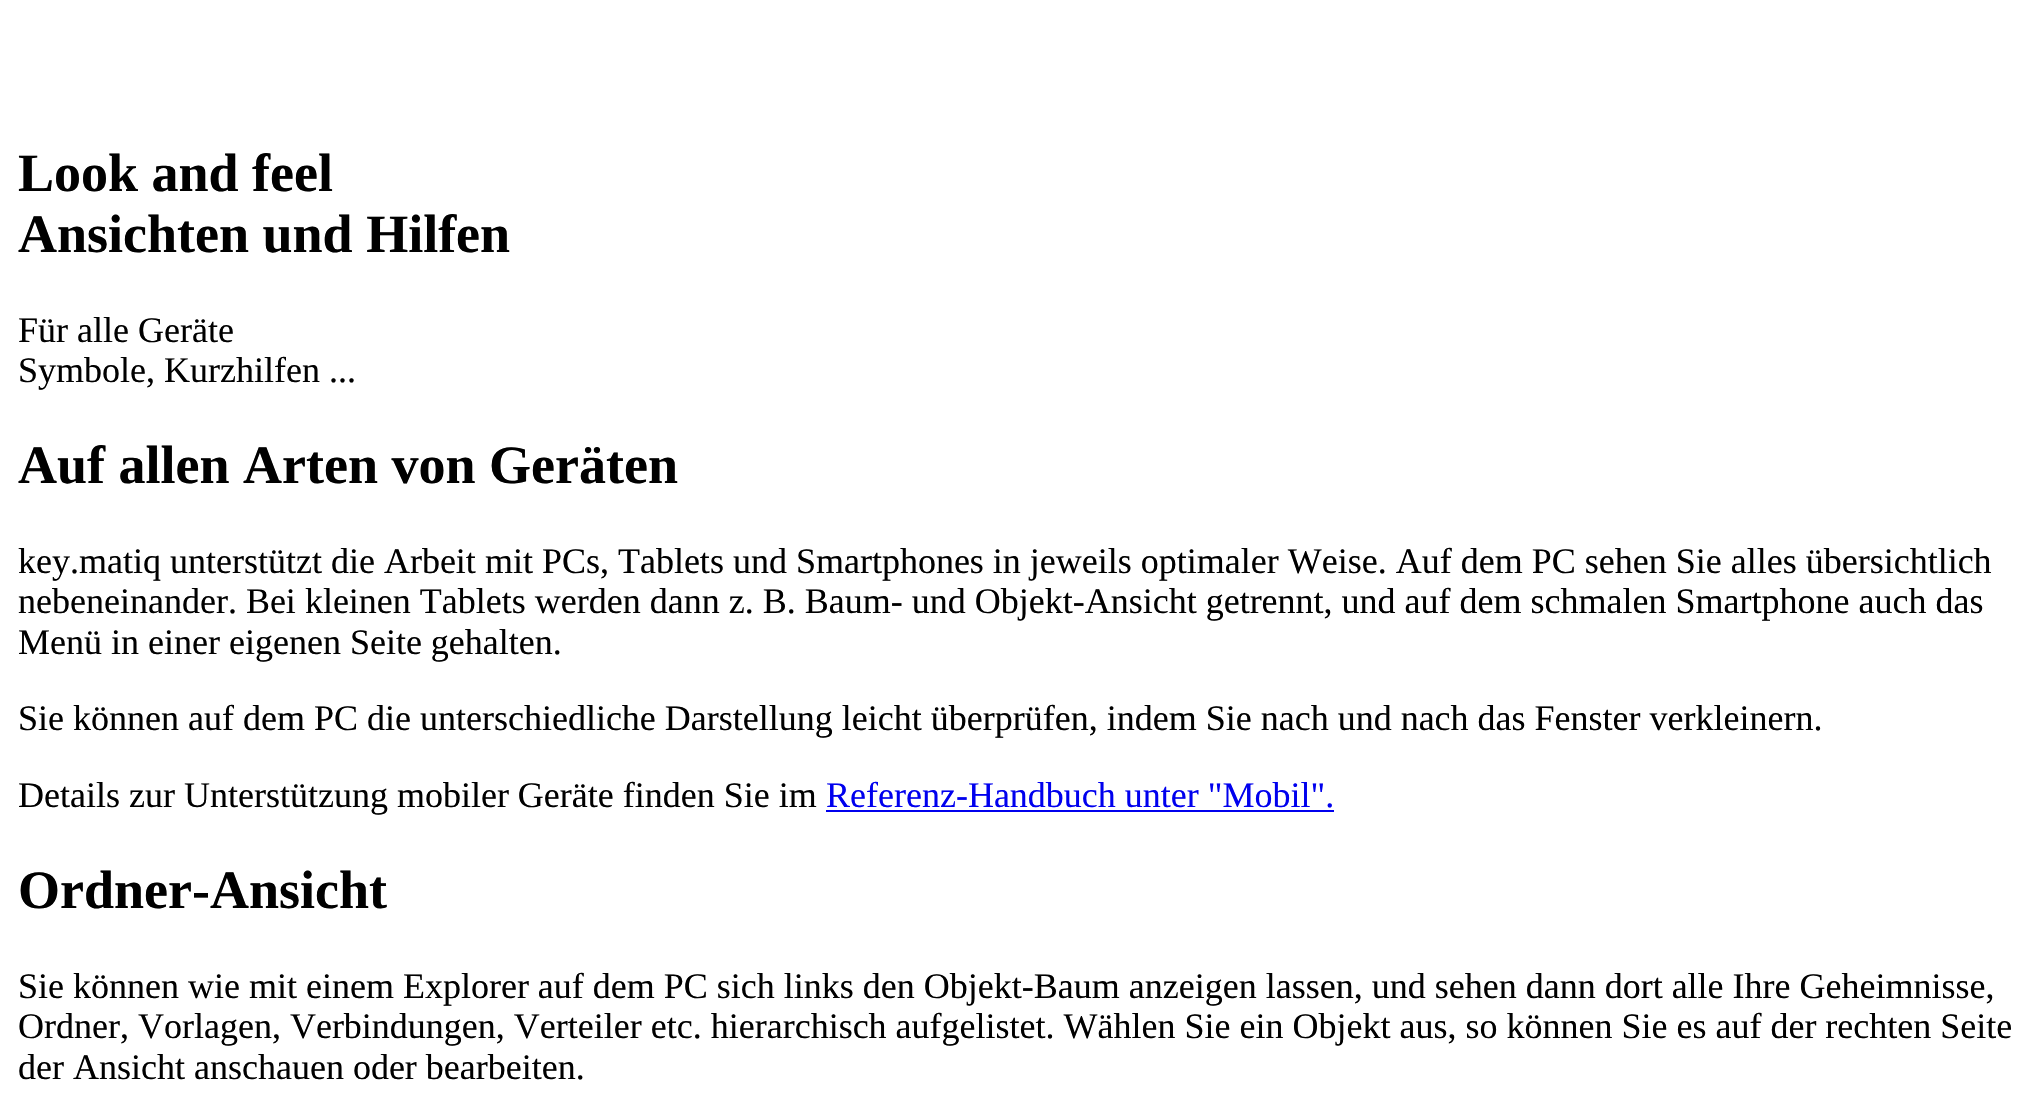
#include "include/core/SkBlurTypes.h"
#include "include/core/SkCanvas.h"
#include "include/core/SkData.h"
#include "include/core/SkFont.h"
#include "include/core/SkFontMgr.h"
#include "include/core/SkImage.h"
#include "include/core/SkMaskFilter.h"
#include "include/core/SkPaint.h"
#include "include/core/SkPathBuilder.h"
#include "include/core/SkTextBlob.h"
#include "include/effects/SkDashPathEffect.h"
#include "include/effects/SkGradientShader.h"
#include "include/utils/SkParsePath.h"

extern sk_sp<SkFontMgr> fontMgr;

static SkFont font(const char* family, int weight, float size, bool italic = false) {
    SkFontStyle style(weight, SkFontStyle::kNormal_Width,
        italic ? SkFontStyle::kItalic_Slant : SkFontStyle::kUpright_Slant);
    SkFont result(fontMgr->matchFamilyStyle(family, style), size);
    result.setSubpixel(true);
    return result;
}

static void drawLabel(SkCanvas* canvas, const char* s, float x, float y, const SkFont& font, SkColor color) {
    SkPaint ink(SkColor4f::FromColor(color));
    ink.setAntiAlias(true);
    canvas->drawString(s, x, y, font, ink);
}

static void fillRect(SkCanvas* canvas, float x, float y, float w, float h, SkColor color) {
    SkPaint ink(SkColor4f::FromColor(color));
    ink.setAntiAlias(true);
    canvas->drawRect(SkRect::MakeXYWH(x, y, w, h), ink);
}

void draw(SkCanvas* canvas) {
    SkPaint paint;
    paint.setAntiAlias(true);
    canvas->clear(0xFFFFFFFF);
    SkFont font1 = font("Liberation Serif", 700, 54);
    drawLabel(canvas, "Look and feel", 18, 191, font1, 0xFF000000);
    drawLabel(canvas, "Ansichten und Hilfen", 18, 252, font1, 0xFF000000);
    SkFont font2 = font("Liberation Serif", 400, 36);
    drawLabel(canvas, "Für alle Geräte", 18, 342, font2, 0xFF000000);
    drawLabel(canvas, "Symbole, Kurzhilfen ...", 18, 382, font2, 0xFF000000);
    drawLabel(canvas, "Auf allen Arten von Geräten", 18, 483, font1, 0xFF000000);
    drawLabel(canvas, "key.matiq unterstützt die Arbeit mit PCs, Tablets und Smartphones in jeweils optimaler Weise. Auf dem PC sehen Sie alles übersichtlich", 18, 573, font2, 0xFF000000);
    drawLabel(canvas, "nebeneinander. Bei kleinen Tablets werden dann z. B. Baum- und Objekt-Ansicht getrennt, und auf dem schmalen Smartphone auch das", 18, 613, font2, 0xFF000000);
    drawLabel(canvas, "Menü in einer eigenen Seite gehalten.", 18, 654, font2, 0xFF000000);
    drawLabel(canvas, "Sie können auf dem PC die unterschiedliche Darstellung leicht überprüfen, indem Sie nach und nach das Fenster verkleinern.", 18, 730, font2, 0xFF000000);
    drawLabel(canvas, "Details zur Unterstützung mobiler Geräte finden Sie im", 18, 807, font2, 0xFF000000);
    drawLabel(canvas, "Referenz-Handbuch unter \"Mobil\".", 826, 807, font2, 0xFF0000EE);
    fillRect(canvas, 826, 810, 508, 2, 0xFF0000EE);
    drawLabel(canvas, "Ordner-Ansicht", 18, 908, font1, 0xFF000000);
    drawLabel(canvas, "Sie können wie mit einem Explorer auf dem PC sich links den Objekt-Baum anzeigen lassen, und sehen dann dort alle Ihre Geheimnisse,", 18, 998, font2, 0xFF000000);
    drawLabel(canvas, "Ordner, Vorlagen, Verbindungen, Verteiler etc. hierarchisch aufgelistet. Wählen Sie ein Objekt aus, so können Sie es auf der rechten Seite", 18, 1038, font2, 0xFF000000);
    drawLabel(canvas, "der Ansicht anschauen oder bearbeiten.", 18, 1079, font2, 0xFF000000);
}
